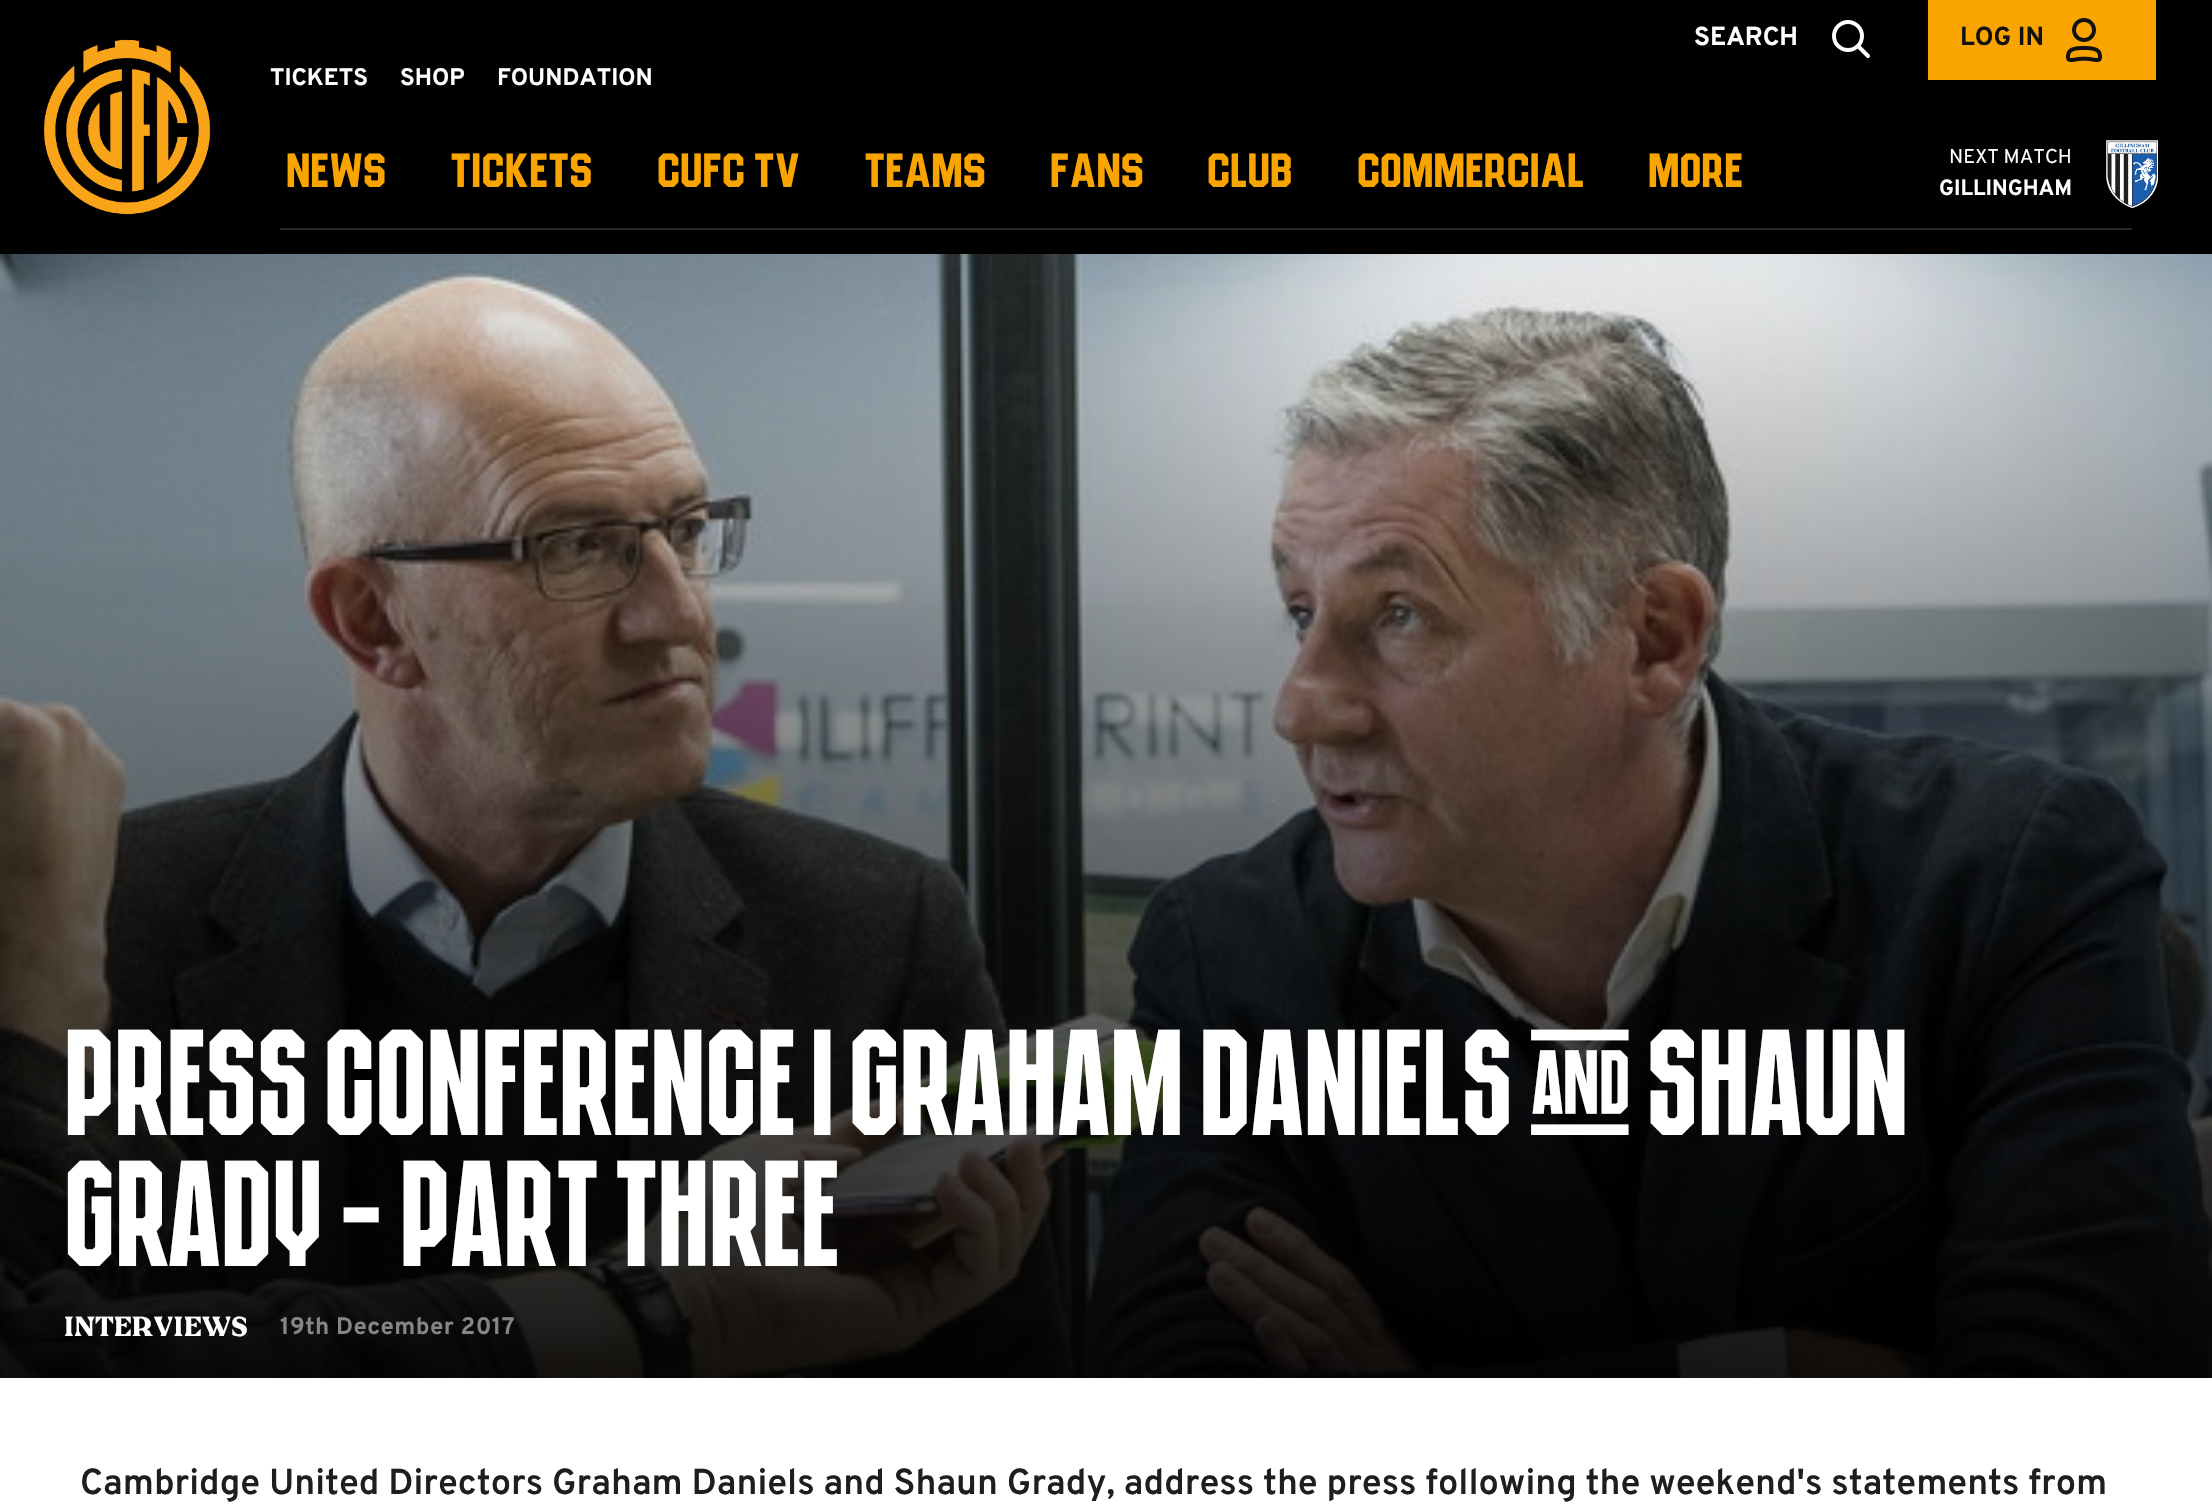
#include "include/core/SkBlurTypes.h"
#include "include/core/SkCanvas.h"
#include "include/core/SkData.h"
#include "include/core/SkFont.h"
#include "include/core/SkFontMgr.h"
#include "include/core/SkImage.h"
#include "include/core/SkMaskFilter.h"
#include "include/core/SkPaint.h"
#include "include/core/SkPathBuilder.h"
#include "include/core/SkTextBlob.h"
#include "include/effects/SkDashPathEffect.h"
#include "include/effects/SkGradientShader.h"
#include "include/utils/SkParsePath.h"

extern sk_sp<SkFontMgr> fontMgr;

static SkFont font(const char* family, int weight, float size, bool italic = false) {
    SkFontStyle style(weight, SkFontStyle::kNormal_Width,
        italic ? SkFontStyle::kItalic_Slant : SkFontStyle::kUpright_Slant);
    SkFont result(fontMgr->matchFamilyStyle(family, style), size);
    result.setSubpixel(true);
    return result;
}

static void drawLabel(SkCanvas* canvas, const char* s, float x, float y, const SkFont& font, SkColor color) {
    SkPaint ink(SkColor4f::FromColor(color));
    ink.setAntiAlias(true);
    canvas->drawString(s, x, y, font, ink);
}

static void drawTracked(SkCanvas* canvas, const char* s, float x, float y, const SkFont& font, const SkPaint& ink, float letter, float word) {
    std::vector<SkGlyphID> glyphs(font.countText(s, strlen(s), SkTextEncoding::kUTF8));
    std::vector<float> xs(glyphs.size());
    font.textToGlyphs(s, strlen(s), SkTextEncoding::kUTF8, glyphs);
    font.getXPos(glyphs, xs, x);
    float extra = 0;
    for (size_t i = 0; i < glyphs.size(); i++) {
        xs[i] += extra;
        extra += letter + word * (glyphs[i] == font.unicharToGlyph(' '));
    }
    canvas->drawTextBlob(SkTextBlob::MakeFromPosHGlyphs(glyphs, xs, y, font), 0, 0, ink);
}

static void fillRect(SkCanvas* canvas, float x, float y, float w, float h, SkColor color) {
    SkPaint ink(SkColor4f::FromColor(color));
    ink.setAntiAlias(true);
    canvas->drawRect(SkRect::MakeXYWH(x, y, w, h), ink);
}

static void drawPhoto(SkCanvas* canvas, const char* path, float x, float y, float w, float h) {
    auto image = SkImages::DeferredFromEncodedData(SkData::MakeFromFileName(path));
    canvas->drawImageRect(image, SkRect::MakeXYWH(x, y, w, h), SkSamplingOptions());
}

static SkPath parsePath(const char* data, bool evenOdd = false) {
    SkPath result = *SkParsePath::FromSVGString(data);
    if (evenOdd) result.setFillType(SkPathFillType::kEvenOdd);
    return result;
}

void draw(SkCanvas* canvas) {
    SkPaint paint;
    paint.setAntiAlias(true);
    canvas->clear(0xFFFFFFFF);
    fillRect(canvas, 0, 0, 2212, 254, 0xFF000000);
    drawPhoto(canvas, "assets/img1.png", 44, 39, 167, 176);
    SkFont font1 = font("Overpass", 700, 26);
    drawLabel(canvas, "SEARCH", 1694, 45, font1, 0xFFFFFFFF);
    paint.setStroke(true);
    paint.setStrokeWidth(4);
    paint.setColor(0xFFFFFFFF);
    canvas->drawCircle(1848, 36, 14, paint);
    paint.setStrokeCap(SkPaint::kRound_Cap);
    canvas->drawPath(parsePath("M1859 47L1868 56"), paint);
    fillRect(canvas, 1928, 0, 228, 80, 0xFFFAA400);
    drawLabel(canvas, "LOG IN", 1960, 45, font1, 0xFF111111);
    drawPhoto(canvas, "assets/img2.png", 2066, 18, 36, 44);
    SkFont font2 = font("Overpass", 700, 24);
    drawLabel(canvas, "TICKETS", 270, 85, font2, 0xFFFFFFFF);
    drawLabel(canvas, "SHOP", 400, 85, font2, 0xFFFFFFFF);
    drawLabel(canvas, "FOUNDATION", 497, 85, font2, 0xFFFFFFFF);
    SkFont font3 = font("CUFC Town", 400, 42);
    drawLabel(canvas, "NEWS", 286, 187, font3, 0xFFFAA400);
    drawLabel(canvas, "TICKETS", 450, 187, font3, 0xFFFAA400);
    drawLabel(canvas, "CUFC TV", 657, 187, font3, 0xFFFAA400);
    drawLabel(canvas, "TEAMS", 864, 187, font3, 0xFFFAA400);
    drawLabel(canvas, "FANS", 1050, 187, font3, 0xFFFAA400);
    drawLabel(canvas, "CLUB", 1207, 187, font3, 0xFFFAA400);
    drawLabel(canvas, "COMMERCIAL", 1357, 187, font3, 0xFFFAA400);
    drawLabel(canvas, "MORE", 1648, 187, font3, 0xFFFAA400);
    SkFont font4 = font("Overpass", 400, 20);
    drawLabel(canvas, "NEXT MATCH", 1949, 163, font4, 0xFFFFFFFF);
    SkFont font5 = font("Overpass", 700, 22);
    drawLabel(canvas, "GILLINGHAM", 1939, 195, font5, 0xFFFFFFFF);
    drawPhoto(canvas, "assets/img3.png", 2106, 140, 52, 68);
    fillRect(canvas, 280, 228, 1852, 2, 0xFF282828);
    drawPhoto(canvas, "assets/img4.png", 0, 254, 2212, 1124);
    SkFont font6 = font("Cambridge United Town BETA", 400, 131.5f);
    drawLabel(canvas, "PRESS CONFERENCE | GRAHAM DANIELS & SHAUN", 64, 1135, font6, 0xFFFFFFFF);
    drawLabel(canvas, "GRADY - PART THREE", 64, 1266, font6, 0xFFFFFFFF);
    SkFont font7 = font("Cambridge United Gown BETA", 400, 24);
    paint.setStroke(false);
    drawTracked(canvas, "Interviews", 64, 1336, font7, paint, 0.4f, 0);
    paint.setColor(0xFF858686);
    drawTracked(canvas, "19th December 2017", 280, 1334, font2, paint, 0.4f, 0);
    SkFont font8 = font("Overpass", 600, 36);
    drawLabel(canvas, "Cambridge United Directors Graham Daniels and Shaun Grady, address the press following the weekend's statements from", 80, 1494, font8, 0xFF1E1E1E);
}
